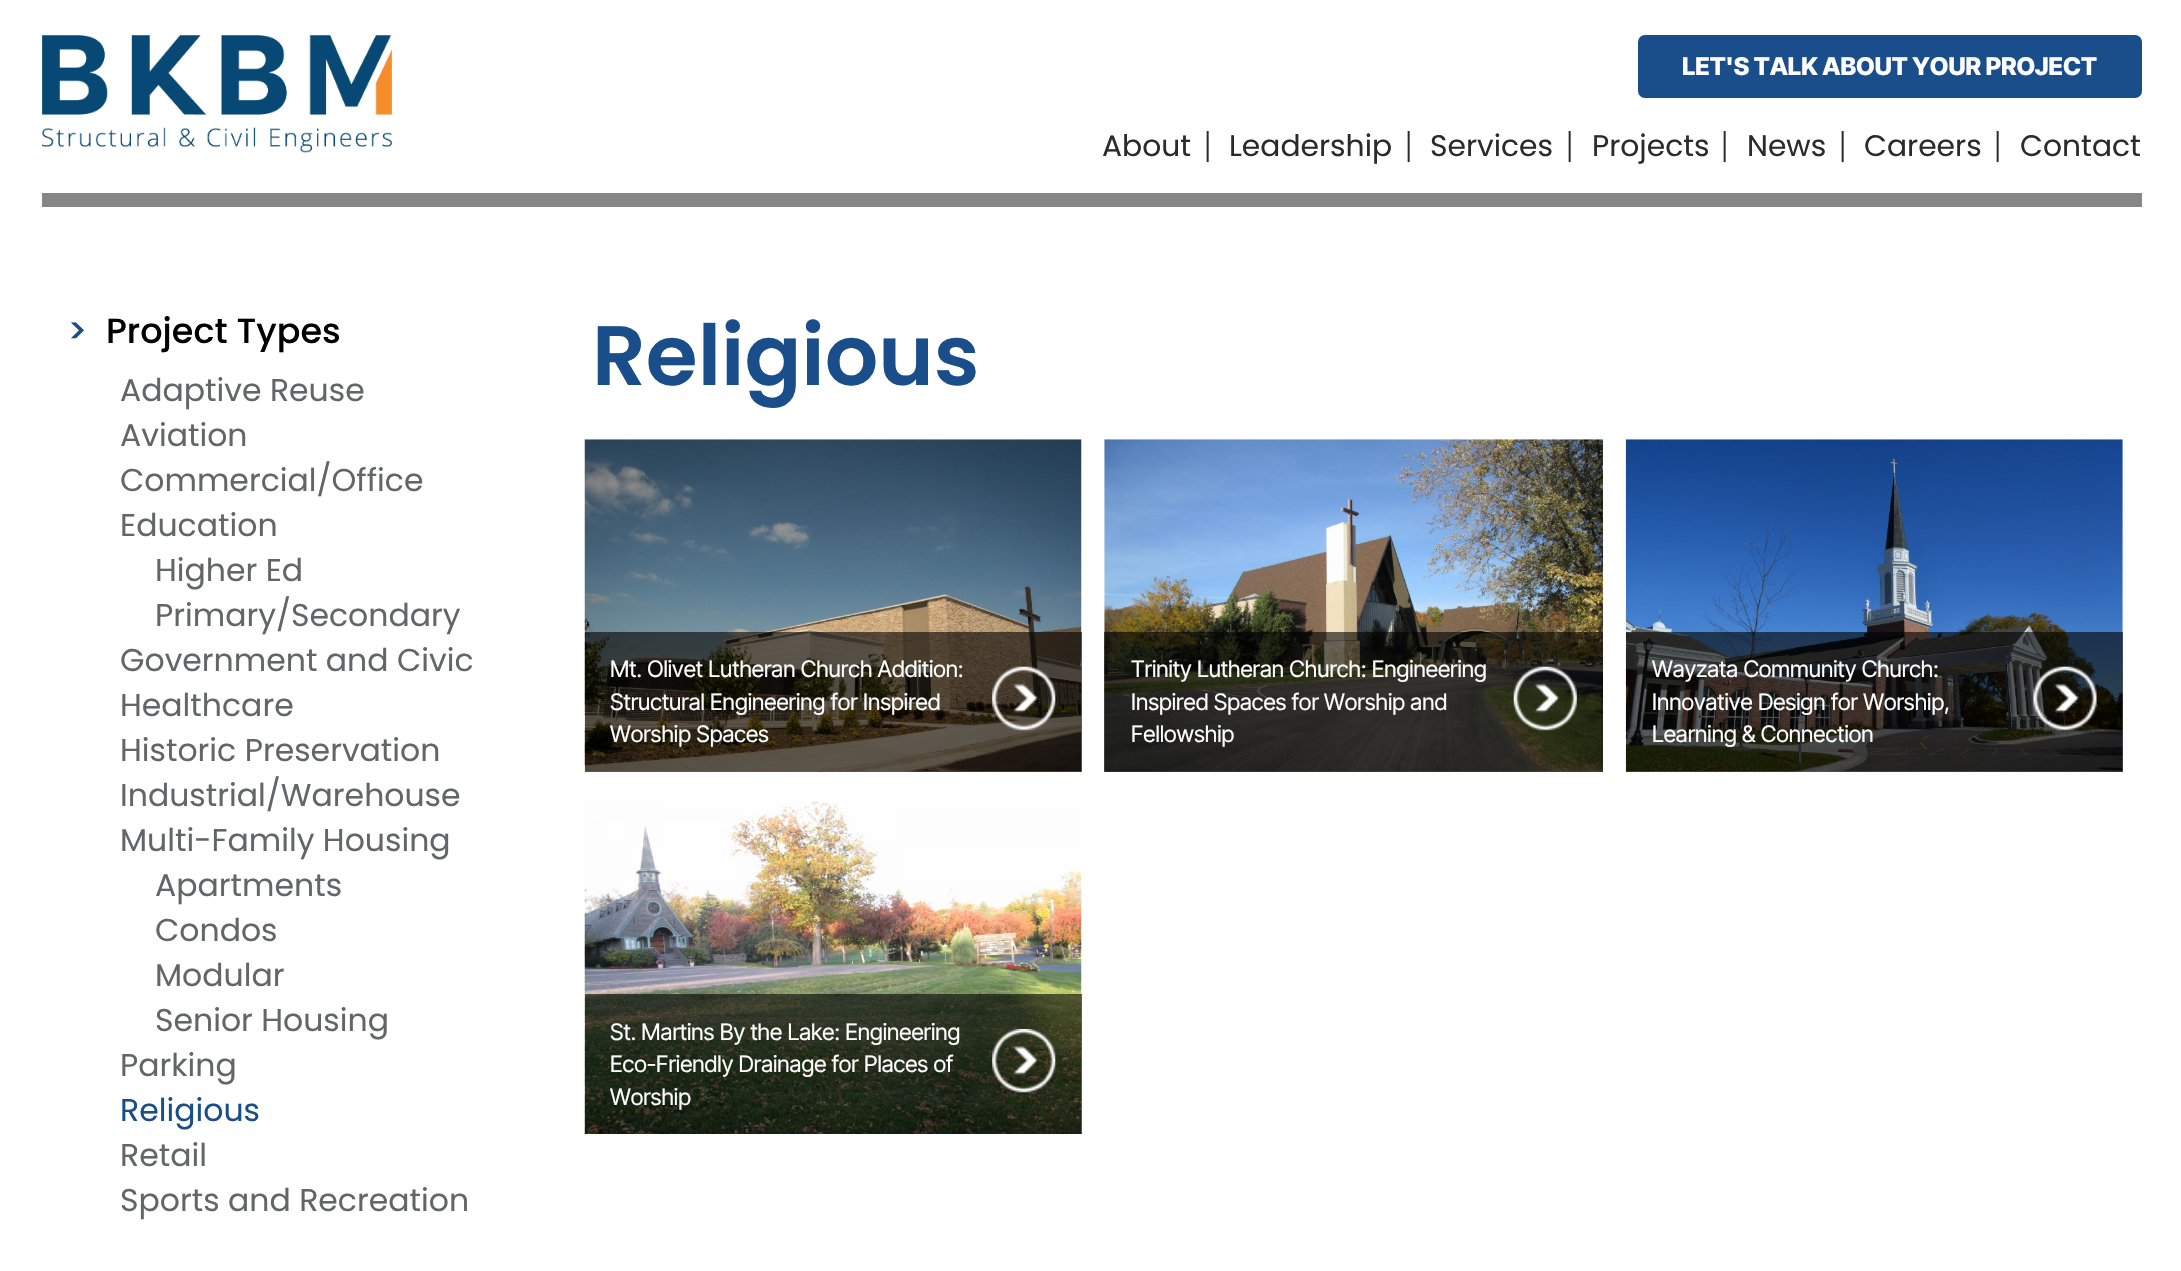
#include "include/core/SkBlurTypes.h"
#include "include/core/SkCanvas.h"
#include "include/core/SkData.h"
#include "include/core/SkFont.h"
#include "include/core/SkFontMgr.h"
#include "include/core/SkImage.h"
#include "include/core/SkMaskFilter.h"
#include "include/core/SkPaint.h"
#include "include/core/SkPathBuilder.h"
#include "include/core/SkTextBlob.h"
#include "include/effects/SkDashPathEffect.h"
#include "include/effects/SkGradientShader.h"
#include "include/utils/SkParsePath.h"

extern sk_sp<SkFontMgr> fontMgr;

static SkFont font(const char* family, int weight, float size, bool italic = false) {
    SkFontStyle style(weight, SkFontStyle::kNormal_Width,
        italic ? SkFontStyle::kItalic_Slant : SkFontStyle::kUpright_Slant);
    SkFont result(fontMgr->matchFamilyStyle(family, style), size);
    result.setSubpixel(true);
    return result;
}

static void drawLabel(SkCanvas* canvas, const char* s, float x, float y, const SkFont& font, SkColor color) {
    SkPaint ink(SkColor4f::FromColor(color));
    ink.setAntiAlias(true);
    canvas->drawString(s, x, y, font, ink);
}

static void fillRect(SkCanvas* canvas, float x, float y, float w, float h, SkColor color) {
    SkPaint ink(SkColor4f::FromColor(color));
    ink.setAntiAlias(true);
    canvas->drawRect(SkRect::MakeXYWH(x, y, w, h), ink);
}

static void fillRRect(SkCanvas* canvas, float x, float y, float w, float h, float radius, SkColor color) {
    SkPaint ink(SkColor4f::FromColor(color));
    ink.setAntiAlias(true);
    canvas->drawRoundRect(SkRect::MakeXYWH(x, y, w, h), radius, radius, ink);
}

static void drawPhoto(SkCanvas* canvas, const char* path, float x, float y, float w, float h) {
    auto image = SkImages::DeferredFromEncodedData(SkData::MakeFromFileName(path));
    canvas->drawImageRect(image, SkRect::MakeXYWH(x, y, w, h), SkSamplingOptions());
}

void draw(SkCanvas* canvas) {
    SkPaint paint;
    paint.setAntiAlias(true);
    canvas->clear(0xFFFFFFFF);
    drawPhoto(canvas, "assets/img1.png", 42, 35, 350, 118);
    fillRRect(canvas, 1638, 35, 504, 63, 7, 0xFF1A4E8A);
    SkFont font1 = font("Inter Tight", 800, 24.5f);
    drawLabel(canvas, "LET'S TALK ABOUT YOUR PROJECT", 1682, 75, font1, 0xFFFFFFFF);
    SkFont font2 = font("Poppins", 400, 29.75f);
    drawLabel(canvas, "About", 1102, 156, font2, 0xFF2B2B2B);
    SkFont font3 = font("Inter Tight", 400, 26);
    drawLabel(canvas, "|", 1204, 156, font3, 0xFF2B2B2B);
    drawLabel(canvas, "Leadership", 1229, 156, font2, 0xFF2B2B2B);
    drawLabel(canvas, "|", 1405, 156, font3, 0xFF2B2B2B);
    drawLabel(canvas, "Services", 1430, 156, font2, 0xFF2B2B2B);
    drawLabel(canvas, "|", 1566, 156, font3, 0xFF2B2B2B);
    drawLabel(canvas, "Projects", 1592, 156, font2, 0xFF2B2B2B);
    drawLabel(canvas, "|", 1721, 156, font3, 0xFF2B2B2B);
    drawLabel(canvas, "News", 1747, 156, font2, 0xFF2B2B2B);
    drawLabel(canvas, "|", 1839, 156, font3, 0xFF2B2B2B);
    drawLabel(canvas, "Careers", 1864, 156, font2, 0xFF2B2B2B);
    drawLabel(canvas, "|", 1994, 156, font3, 0xFF2B2B2B);
    drawLabel(canvas, "Contact", 2020, 156, font2, 0xFF2B2B2B);
    fillRect(canvas, 42, 193, 2100, 14, 0xFF868686);
    SkFont font4 = font("Poppins", 500, 35);
    drawLabel(canvas, ">", 67, 343, font4, 0xFF1A4E8A);
    drawLabel(canvas, "Project Types", 106, 343, font4, 0xFF000000);
    SkFont font5 = font("Poppins", 400, 31.5f);
    drawLabel(canvas, "Adaptive Reuse", 120, 401, font5, 0xFF646566);
    drawLabel(canvas, "Aviation", 120, 446, font5, 0xFF646566);
    drawLabel(canvas, "Commercial/Office", 120, 491, font5, 0xFF646566);
    drawLabel(canvas, "Education", 120, 536, font5, 0xFF646566);
    drawLabel(canvas, "Higher Ed", 155, 581, font5, 0xFF646566);
    drawLabel(canvas, "Primary/Secondary", 155, 626, font5, 0xFF646566);
    drawLabel(canvas, "Government and Civic", 120, 671, font5, 0xFF646566);
    drawLabel(canvas, "Healthcare", 120, 716, font5, 0xFF646566);
    drawLabel(canvas, "Historic Preservation", 120, 761, font5, 0xFF646566);
    drawLabel(canvas, "Industrial/Warehouse", 120, 806, font5, 0xFF646566);
    drawLabel(canvas, "Multi-Family Housing", 120, 851, font5, 0xFF646566);
    drawLabel(canvas, "Apartments", 155, 896, font5, 0xFF646566);
    drawLabel(canvas, "Condos", 155, 941, font5, 0xFF646566);
    drawLabel(canvas, "Modular", 155, 986, font5, 0xFF646566);
    drawLabel(canvas, "Senior Housing", 155, 1031, font5, 0xFF646566);
    drawLabel(canvas, "Parking", 120, 1076, font5, 0xFF646566);
    drawLabel(canvas, "Religious", 120, 1121, font5, 0xFF1A4E8A);
    drawLabel(canvas, "Retail", 120, 1166, font5, 0xFF646566);
    drawLabel(canvas, "Sports and Recreation", 120, 1211, font5, 0xFF646566);
    SkFont font6 = font("Poppins", 600, 84);
    drawLabel(canvas, "Religious", 592, 385, font6, 0xFF1A4E8A);
    drawPhoto(canvas, "assets/img2.png", 584, 439, 498, 333);
    fillRect(canvas, 585, 632, 497, 140, 0x99000000);
    drawPhoto(canvas, "assets/img3.png", 992, 666, 64, 65);
    SkFont font7 = font("Inter Tight", 400, 22.75f);
    drawLabel(canvas, "Mt. Olivet Lutheran Church Addition:", 610, 677, font7, 0xFFFFFFFF);
    drawLabel(canvas, "Structural Engineering for Inspired", 610, 710, font7, 0xFFFFFFFF);
    drawLabel(canvas, "Worship Spaces", 610, 742, font7, 0xFFFFFFFF);
    drawPhoto(canvas, "assets/img4.png", 1104, 439, 499, 333);
    fillRect(canvas, 1104, 632, 499, 140, 0x99000000);
    drawPhoto(canvas, "assets/img5.png", 1513, 666, 64, 65);
    drawLabel(canvas, "Trinity Lutheran Church: Engineering", 1131, 677, font7, 0xFFFFFFFF);
    drawLabel(canvas, "Inspired Spaces for Worship and", 1131, 710, font7, 0xFFFFFFFF);
    drawLabel(canvas, "Fellowship", 1131, 742, font7, 0xFFFFFFFF);
    drawPhoto(canvas, "assets/img6.png", 1625, 439, 498, 333);
    fillRect(canvas, 1626, 632, 497, 140, 0x99000000);
    drawPhoto(canvas, "assets/img7.png", 2033, 666, 64, 65);
    drawLabel(canvas, "Wayzata Community Church:", 1652, 677, font7, 0xFFFFFFFF);
    drawLabel(canvas, "Innovative Design for Worship,", 1652, 710, font7, 0xFFFFFFFF);
    drawLabel(canvas, "Learning & Connection", 1652, 742, font7, 0xFFFFFFFF);
    drawPhoto(canvas, "assets/img8.png", 584, 801, 498, 333);
    fillRect(canvas, 585, 994, 497, 140, 0x99000000);
    drawPhoto(canvas, "assets/img9.png", 992, 1029, 64, 64);
    drawLabel(canvas, "St. Martins By the Lake: Engineering", 610, 1040, font7, 0xFFFFFFFF);
    drawLabel(canvas, "Eco-Friendly Drainage for Places of", 610, 1072, font7, 0xFFFFFFFF);
    drawLabel(canvas, "Worship", 610, 1105, font7, 0xFFFFFFFF);
}
